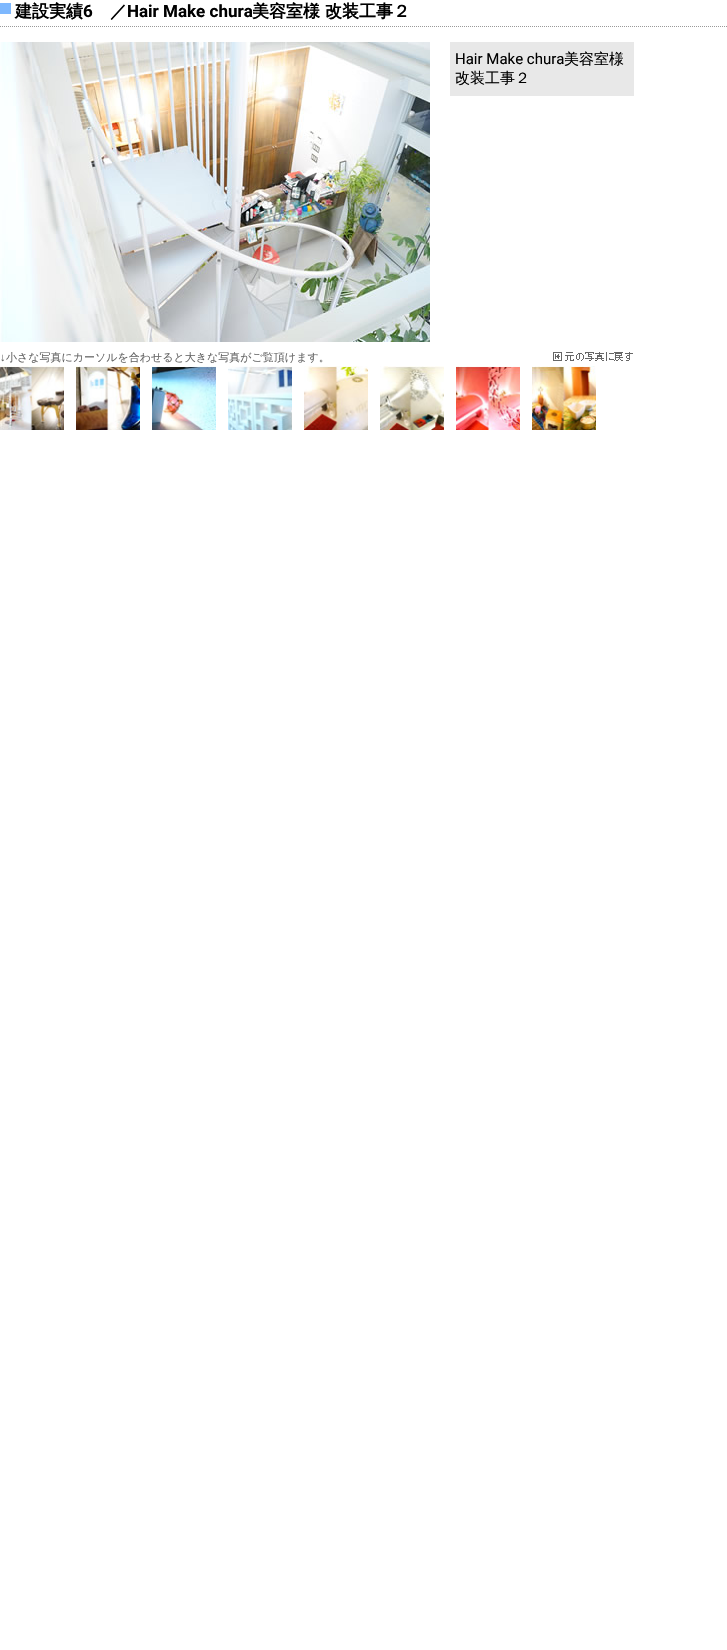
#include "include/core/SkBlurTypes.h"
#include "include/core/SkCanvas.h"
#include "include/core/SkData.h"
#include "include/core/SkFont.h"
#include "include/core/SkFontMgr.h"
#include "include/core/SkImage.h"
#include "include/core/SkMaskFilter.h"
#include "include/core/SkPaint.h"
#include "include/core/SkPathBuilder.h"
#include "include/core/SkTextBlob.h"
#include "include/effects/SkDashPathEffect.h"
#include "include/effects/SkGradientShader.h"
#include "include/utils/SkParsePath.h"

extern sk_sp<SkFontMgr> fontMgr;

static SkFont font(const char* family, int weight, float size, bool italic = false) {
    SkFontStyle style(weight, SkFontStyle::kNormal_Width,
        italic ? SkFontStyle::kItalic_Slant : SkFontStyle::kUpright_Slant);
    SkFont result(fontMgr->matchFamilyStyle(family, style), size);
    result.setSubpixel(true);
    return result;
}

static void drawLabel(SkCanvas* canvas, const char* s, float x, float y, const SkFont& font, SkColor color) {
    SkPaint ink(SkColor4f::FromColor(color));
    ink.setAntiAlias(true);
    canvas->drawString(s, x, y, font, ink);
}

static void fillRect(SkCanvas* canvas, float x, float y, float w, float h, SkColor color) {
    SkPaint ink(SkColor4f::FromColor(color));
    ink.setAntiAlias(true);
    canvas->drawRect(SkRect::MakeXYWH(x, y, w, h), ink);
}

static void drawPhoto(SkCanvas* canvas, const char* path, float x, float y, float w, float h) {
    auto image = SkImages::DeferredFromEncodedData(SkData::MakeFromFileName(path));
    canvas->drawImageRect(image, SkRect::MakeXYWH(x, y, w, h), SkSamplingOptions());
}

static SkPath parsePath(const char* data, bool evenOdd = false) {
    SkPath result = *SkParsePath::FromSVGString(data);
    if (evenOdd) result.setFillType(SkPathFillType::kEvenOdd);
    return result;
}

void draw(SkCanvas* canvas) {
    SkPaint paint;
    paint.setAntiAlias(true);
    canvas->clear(0xFFFFFFFF);
    fillRect(canvas, 0, 3, 11, 11, 0xFF7EB8FE);
    paint.setStroke(true);
    paint.setStrokeWidth(1);
    paint.setColor(0xFF999999);
    paint.setPathEffect(SkDashPathEffect::Make({{1, 1}}, 0));
    canvas->drawPath(parsePath("M0 26.5H727"), paint);
    paint.setPathEffect(nullptr);
    SkFont font1 = font("WenQuanYi Zen Hei", 700, 17);
    drawLabel(canvas, "建設実績", 15, 17, font1, 0xFF000000);
    SkFont font2 = font("Roboto", 700, 17);
    drawLabel(canvas, "6", 83, 17, font2, 0xFF000000);
    drawLabel(canvas, "／", 110, 17, font1, 0xFF000000);
    drawLabel(canvas, "Hair Make chura", 127, 17, font2, 0xFF000000);
    drawLabel(canvas, "美容室様", 252, 17, font1, 0xFF000000);
    drawLabel(canvas, "改装工事２", 325, 17, font1, 0xFF000000);
    drawPhoto(canvas, "assets/img1.png", 0, 42, 430, 300);
    fillRect(canvas, 450, 42, 184, 54, 0xFFE8E8E8);
    SkFont font3 = font("Roboto", 400, 15);
    drawLabel(canvas, "Hair Make chura", 455, 64, font3, 0xFF000000);
    SkFont font4 = font("WenQuanYi Zen Hei", 500, 15);
    drawLabel(canvas, "美容室様", 564, 64, font4, 0xFF000000);
    drawLabel(canvas, "改装工事２", 455, 83, font4, 0xFF000000);
    SkFont font5 = font("Liberation Sans", 400, 11);
    drawLabel(canvas, "↓", 0, 361, font5, 0xFF666666);
    SkFont font6 = font("WenQuanYi Zen Hei", 500, 11);
    drawLabel(canvas, "小さな写真にカーソルを合わせると大きな写真がご覧頂けます。", 6, 361, font6, 0xFF666666);
    drawPhoto(canvas, "assets/img2.png", 553, 352, 80, 9);
    drawPhoto(canvas, "assets/img3.png", 0, 366, 64, 64);
    drawPhoto(canvas, "assets/img4.png", 76, 366, 64, 64);
    drawPhoto(canvas, "assets/img5.png", 152, 366, 64, 64);
    drawPhoto(canvas, "assets/img6.png", 228, 366, 64, 64);
    drawPhoto(canvas, "assets/img7.png", 304, 366, 64, 64);
    drawPhoto(canvas, "assets/img8.png", 380, 366, 64, 64);
    drawPhoto(canvas, "assets/img9.png", 456, 366, 64, 64);
    drawPhoto(canvas, "assets/img10.png", 532, 366, 64, 64);
}
